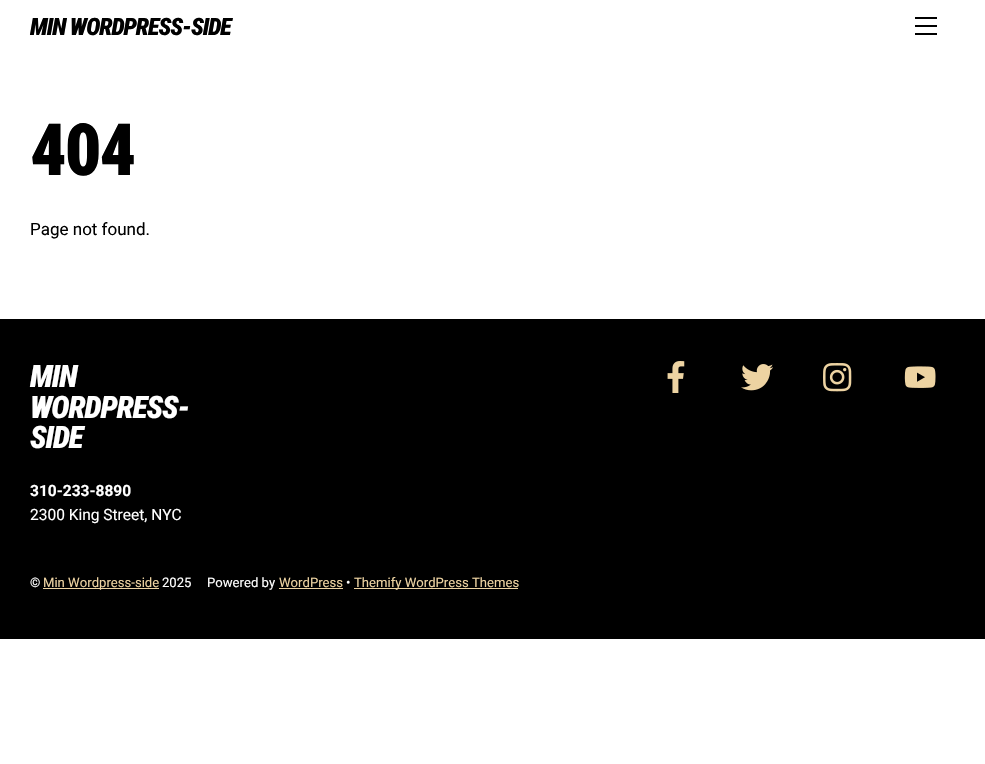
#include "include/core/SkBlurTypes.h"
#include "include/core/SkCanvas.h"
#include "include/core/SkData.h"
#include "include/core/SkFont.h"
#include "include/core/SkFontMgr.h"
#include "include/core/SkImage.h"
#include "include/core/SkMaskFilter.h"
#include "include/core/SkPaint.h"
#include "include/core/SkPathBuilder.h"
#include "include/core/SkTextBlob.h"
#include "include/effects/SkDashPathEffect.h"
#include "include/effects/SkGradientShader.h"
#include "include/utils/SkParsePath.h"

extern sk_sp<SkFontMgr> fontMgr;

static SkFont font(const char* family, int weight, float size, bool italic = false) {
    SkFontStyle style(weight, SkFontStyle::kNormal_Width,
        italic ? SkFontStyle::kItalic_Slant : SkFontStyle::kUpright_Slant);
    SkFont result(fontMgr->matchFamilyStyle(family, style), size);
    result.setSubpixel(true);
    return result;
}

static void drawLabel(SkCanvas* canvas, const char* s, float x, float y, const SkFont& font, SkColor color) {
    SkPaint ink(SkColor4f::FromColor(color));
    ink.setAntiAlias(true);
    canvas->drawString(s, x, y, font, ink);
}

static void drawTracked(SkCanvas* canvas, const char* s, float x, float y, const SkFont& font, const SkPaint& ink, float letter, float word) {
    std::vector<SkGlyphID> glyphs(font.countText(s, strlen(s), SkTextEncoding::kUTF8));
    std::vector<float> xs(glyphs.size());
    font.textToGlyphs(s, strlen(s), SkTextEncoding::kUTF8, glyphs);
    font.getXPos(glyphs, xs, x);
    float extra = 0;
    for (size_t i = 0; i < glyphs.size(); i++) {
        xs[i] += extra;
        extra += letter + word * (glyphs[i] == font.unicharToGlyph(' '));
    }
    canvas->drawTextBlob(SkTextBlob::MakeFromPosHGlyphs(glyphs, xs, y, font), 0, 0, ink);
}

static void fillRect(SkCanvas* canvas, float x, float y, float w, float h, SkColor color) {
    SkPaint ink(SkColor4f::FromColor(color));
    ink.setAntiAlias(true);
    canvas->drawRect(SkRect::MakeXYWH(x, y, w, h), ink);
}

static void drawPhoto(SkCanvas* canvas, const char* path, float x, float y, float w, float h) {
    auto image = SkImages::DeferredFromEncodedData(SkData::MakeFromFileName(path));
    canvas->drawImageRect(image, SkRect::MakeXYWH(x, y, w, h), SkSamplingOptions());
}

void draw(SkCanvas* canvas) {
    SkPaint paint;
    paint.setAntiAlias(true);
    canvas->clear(0xFFFFFFFF);
    SkFont font1 = font("Roboto Condensed", 900, 24, true);
    paint.setColor(0xFF000000);
    drawTracked(canvas, "MIN WORDPRESS-SIDE", 30, 35, font1, paint, -1, 0);
    fillRect(canvas, 915, 33, 22, 2, 0xFF000000);
    fillRect(canvas, 915, 17, 22, 2, 0xFF000000);
    fillRect(canvas, 915, 25, 22, 2, 0xFF000000);
    SkFont font2 = font("Roboto Condensed", 900, 72);
    drawTracked(canvas, "404", 30, 175, font2, paint, -2, 0);
    SkFont font3 = font("Roboto", 400, 17);
    drawLabel(canvas, "Page not found.", 30, 235, font3, 0xFF000000);
    fillRect(canvas, 0, 319, 985, 320, 0xFF000000);
    SkFont font4 = font("Roboto Condensed", 900, 31, true);
    paint.setColor(0xFFFFFFFF);
    drawTracked(canvas, "MIN", 30, 387, font4, paint, -1, 0);
    drawTracked(canvas, "WORDPRESS-", 30, 418, font4, paint, -1, 0);
    drawTracked(canvas, "SIDE", 30, 448, font4, paint, -1, 0);
    SkFont font5 = font("Roboto", 700, 15.5f);
    drawLabel(canvas, "310-233-8890", 30, 496, font5, 0xFFFFFFFF);
    SkFont font6 = font("Roboto", 400, 15.5f);
    drawLabel(canvas, "2300 King Street, NYC", 30, 520, font6, 0xFFFFFFFF);
    drawPhoto(canvas, "assets/img1.png", 667, 361, 18, 32);
    drawPhoto(canvas, "assets/img2.png", 741, 364, 32, 27);
    drawPhoto(canvas, "assets/img3.png", 823, 363, 29, 29);
    drawPhoto(canvas, "assets/img4.png", 904, 366, 32, 22);
    SkFont font7 = font("Roboto", 400, 13.1f);
    drawLabel(canvas, "©", 30, 587, font7, 0xFFFFFFFF);
    fillRect(canvas, 43, 588, 116, 1, 0xFFEDD3A2);
    drawLabel(canvas, "Min Wordpress-side", 43, 587, font7, 0xFFEDD3A2);
    drawLabel(canvas, "2025", 162, 587, font7, 0xFFFFFFFF);
    drawLabel(canvas, "Powered by", 207, 587, font7, 0xFFFFFFFF);
    drawLabel(canvas, "WordPress", 279, 587, font7, 0xFFEDD3A2);
    fillRect(canvas, 279, 588, 64, 1, 0xFFEDD3A2);
    drawLabel(canvas, "•", 346, 587, font7, 0xFFFFFFFF);
    fillRect(canvas, 354, 588, 164, 1, 0xFFEDD3A2);
    drawLabel(canvas, "Themify WordPress Themes", 354, 587, font7, 0xFFEDD3A2);
}
